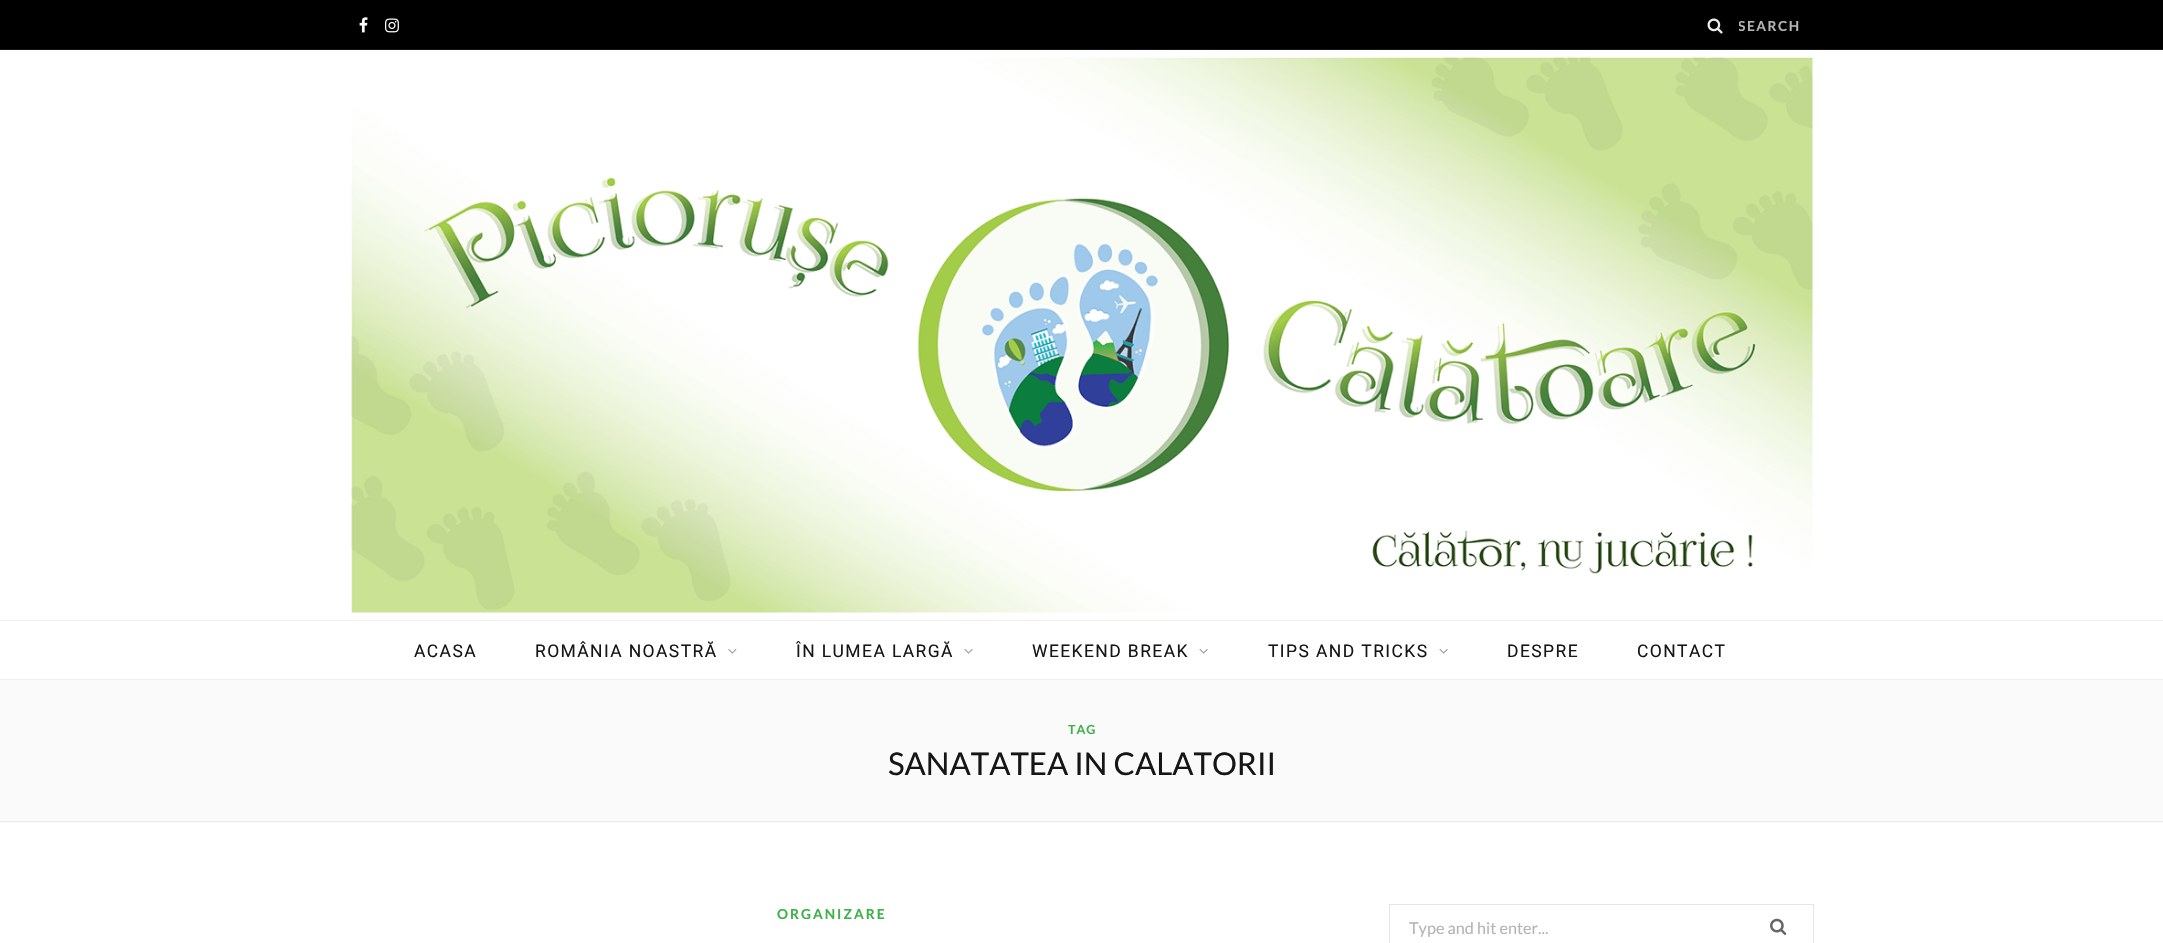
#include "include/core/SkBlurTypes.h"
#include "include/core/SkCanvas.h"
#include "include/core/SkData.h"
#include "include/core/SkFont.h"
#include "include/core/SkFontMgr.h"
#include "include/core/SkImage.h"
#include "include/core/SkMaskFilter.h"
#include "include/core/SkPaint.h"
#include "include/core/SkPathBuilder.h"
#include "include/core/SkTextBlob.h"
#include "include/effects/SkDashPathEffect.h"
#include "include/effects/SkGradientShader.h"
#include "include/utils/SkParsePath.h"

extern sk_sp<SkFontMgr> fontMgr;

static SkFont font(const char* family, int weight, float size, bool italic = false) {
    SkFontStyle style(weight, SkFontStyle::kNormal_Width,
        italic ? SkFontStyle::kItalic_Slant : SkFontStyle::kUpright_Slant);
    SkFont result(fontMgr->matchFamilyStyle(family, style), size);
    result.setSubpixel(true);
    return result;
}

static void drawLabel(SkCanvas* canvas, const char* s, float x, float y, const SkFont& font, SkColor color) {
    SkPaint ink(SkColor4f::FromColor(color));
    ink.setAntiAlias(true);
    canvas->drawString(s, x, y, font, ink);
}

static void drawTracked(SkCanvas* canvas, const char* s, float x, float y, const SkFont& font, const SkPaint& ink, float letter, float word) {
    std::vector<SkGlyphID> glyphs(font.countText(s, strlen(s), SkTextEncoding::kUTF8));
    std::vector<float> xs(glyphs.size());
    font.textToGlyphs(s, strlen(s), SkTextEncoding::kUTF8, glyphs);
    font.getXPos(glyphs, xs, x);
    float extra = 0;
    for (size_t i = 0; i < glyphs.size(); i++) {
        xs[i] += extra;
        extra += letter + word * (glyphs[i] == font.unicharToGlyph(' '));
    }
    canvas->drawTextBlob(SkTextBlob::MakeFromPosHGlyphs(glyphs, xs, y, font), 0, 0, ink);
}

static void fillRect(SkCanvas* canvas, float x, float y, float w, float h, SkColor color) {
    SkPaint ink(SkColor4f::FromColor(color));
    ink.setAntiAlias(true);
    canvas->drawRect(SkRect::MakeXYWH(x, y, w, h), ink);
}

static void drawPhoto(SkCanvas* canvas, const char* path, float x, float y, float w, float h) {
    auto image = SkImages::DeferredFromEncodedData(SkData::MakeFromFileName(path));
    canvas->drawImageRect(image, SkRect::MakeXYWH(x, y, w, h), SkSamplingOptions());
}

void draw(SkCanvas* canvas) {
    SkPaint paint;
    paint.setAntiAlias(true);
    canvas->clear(0xFFFFFFFF);
    fillRect(canvas, 0, 0, 2163, 49, 0xFF000000);
    fillRect(canvas, 0, 49, 2163, 1, 0xFF161616);
    drawPhoto(canvas, "assets/img1.png", 359, 17, 9, 16);
    drawPhoto(canvas, "assets/img2.png", 385, 18, 14, 15);
    drawPhoto(canvas, "assets/img3.png", 1707, 18, 16, 16);
    canvas->save();
    canvas->clipRect(SkRect::MakeXYWH(1739, 18, 70, 16));
    SkFont font1 = font("Lato", 700, 13.75f);
    paint.setColor(0xFFB4B4B4);
    drawTracked(canvas, "SEARCH", 1738, 31, font1, paint, 1.5f, 0);
    canvas->restore();
    drawPhoto(canvas, "assets/img4.png", 351, 56, 1462, 557);
    fillRect(canvas, 0, 620, 2163, 1, 0xFFEFEFEF);
    fillRect(canvas, 0, 679, 2163, 1, 0xFFEFEFEF);
    SkFont font2 = font("Roboto", 400, 17.5f);
    paint.setColor(0xFF161616);
    drawTracked(canvas, "ACASA", 414, 657, font2, paint, 1.4f, 0);
    drawTracked(canvas, "ROMÂNIA NOASTRĂ", 535, 657, font2, paint, 1.4f, 0);
    drawPhoto(canvas, "assets/img5.png", 728, 649, 9, 5);
    drawTracked(canvas, "ÎN LUMEA LARGĂ", 796, 657, font2, paint, 1.4f, 0);
    drawPhoto(canvas, "assets/img6.png", 964, 649, 9, 5);
    drawTracked(canvas, "WEEKEND BREAK", 1032, 657, font2, paint, 1.4f, 0);
    drawPhoto(canvas, "assets/img6.png", 1199, 649, 9, 5);
    drawTracked(canvas, "TIPS AND TRICKS", 1268, 657, font2, paint, 1.4f, 0);
    drawPhoto(canvas, "assets/img6.png", 1439, 649, 9, 5);
    drawTracked(canvas, "DESPRE", 1507, 657, font2, paint, 1.4f, 0);
    drawTracked(canvas, "CONTACT", 1637, 657, font2, paint, 1.4f, 0);
    fillRect(canvas, 0, 680, 2163, 143, 0xFFFAFAFA);
    fillRect(canvas, 0, 821, 2163, 1, 0xFFEBEBEB);
    SkFont font3 = font("Lato", 700, 12.5f);
    paint.setColor(0xFF3CB246);
    drawTracked(canvas, "TAG", 1068, 734, font3, paint, 1, 0);
    SkFont font4 = font("Lato", 400, 31.25f);
    drawLabel(canvas, "SANATATEA IN CALATORII", 888, 775, font4, 0xFF161616);
    drawTracked(canvas, "ORGANIZARE", 777, 919, font1, paint, 2, 0);
    paint.setStroke(true);
    paint.setStrokeWidth(1);
    paint.setColor(0xFFE5E5E5);
    canvas->drawRect(SkRect::MakeXYWH(1389.5f, 904.5f, 424, 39), paint);
    SkFont font5 = font("Lato", 400, 16.25f);
    drawLabel(canvas, "Type and hit enter...", 1409, 934, font5, 0xFFB4B4B4);
    drawPhoto(canvas, "assets/img7.png", 1770, 918, 17, 17);
}
